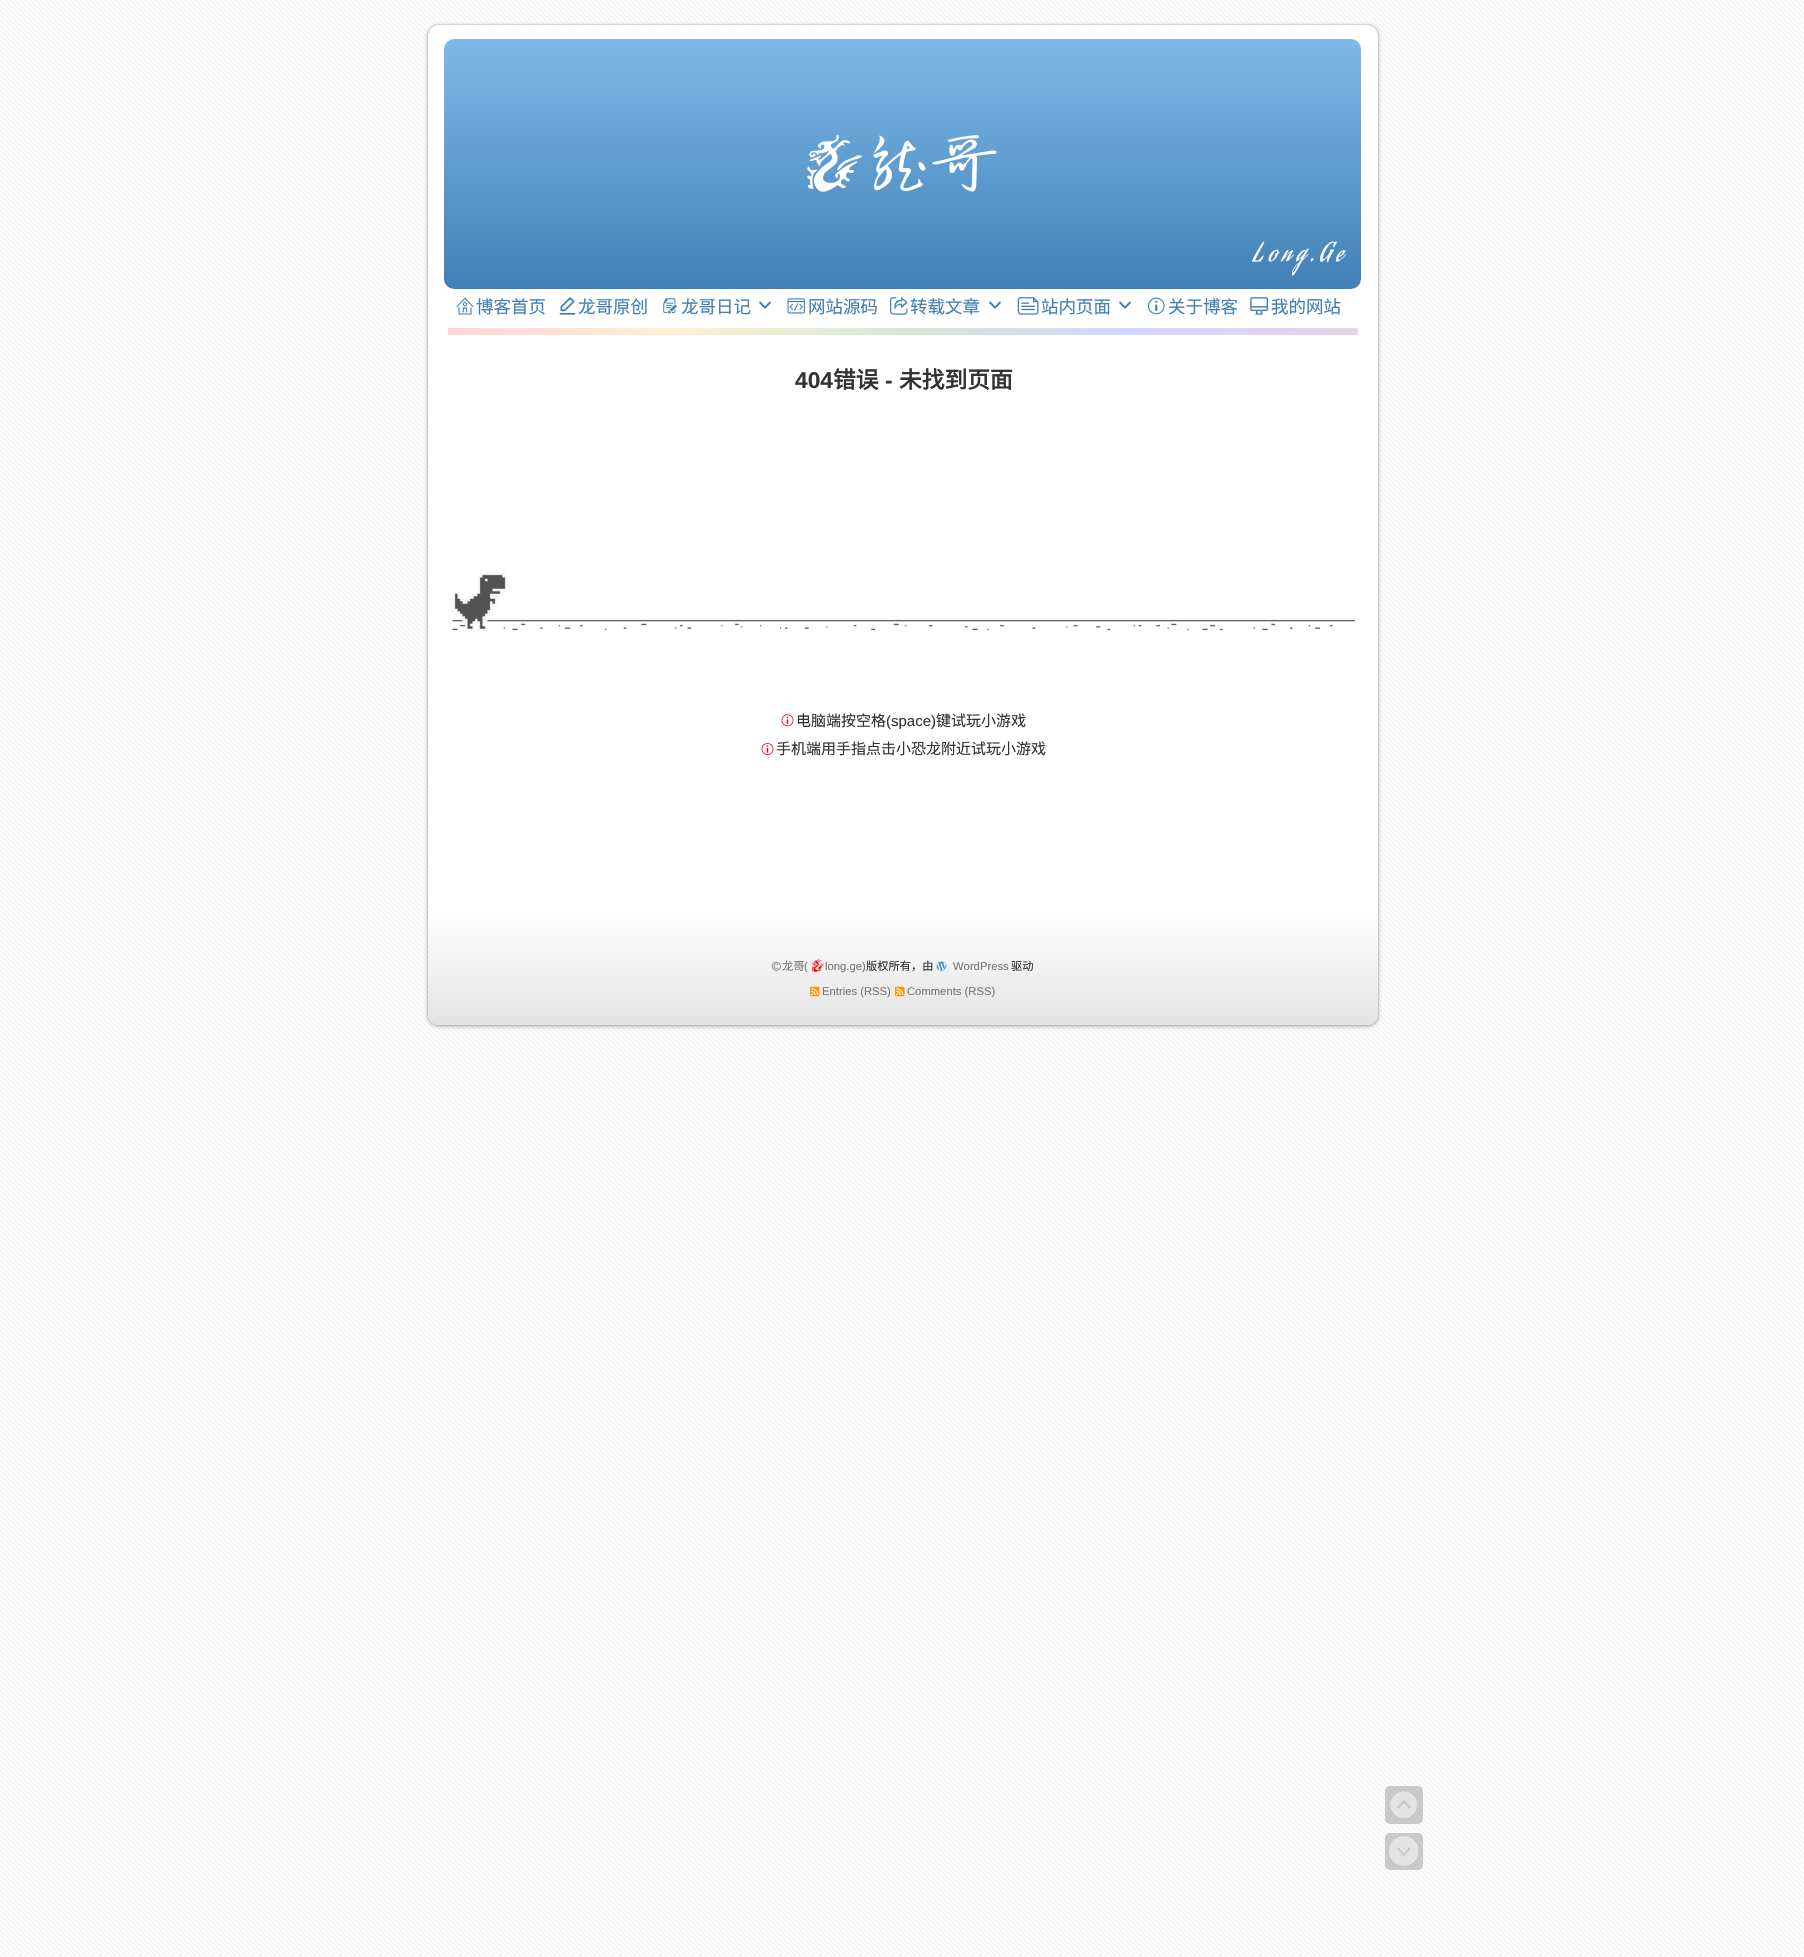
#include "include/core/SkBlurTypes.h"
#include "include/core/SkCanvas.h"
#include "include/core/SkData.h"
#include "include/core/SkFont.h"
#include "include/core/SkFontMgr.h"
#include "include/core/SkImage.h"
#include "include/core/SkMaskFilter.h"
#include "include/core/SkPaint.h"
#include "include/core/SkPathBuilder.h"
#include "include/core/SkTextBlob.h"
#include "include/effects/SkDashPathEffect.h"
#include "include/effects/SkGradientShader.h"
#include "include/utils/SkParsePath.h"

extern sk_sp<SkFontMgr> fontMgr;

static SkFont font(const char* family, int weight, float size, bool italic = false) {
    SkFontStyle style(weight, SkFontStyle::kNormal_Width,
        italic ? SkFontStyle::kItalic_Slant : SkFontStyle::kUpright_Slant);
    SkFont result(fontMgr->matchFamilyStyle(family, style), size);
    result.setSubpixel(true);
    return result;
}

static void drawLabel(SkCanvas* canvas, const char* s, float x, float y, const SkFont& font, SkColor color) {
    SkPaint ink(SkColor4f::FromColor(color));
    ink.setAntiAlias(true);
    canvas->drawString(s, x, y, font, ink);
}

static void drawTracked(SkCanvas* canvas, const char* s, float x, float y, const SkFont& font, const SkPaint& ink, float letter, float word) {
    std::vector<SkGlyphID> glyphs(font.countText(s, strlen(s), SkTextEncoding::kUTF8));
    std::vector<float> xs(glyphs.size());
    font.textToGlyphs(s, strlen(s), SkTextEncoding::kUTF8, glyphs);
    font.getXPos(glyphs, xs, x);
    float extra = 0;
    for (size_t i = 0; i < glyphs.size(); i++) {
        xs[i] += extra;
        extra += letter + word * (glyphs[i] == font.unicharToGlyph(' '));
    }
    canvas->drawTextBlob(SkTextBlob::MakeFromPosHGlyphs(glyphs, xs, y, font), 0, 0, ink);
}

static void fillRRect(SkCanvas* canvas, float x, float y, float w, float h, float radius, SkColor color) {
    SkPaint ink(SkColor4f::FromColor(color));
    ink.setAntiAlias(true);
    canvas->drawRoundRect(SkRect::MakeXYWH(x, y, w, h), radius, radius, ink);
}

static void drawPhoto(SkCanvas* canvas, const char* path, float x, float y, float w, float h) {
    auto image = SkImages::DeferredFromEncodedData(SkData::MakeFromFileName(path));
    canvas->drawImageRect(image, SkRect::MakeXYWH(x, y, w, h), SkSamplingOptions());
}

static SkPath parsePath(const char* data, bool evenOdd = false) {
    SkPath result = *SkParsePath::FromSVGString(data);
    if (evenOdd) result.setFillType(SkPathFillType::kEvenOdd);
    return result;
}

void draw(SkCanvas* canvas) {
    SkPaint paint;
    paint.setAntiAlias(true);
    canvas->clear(0xFFFFFFFF);
    drawPhoto(canvas, "assets/img1.png", 0, 0, 1804, 1957);
    paint.setColor(0xFF9E9E9E);
    paint.setMaskFilter(SkMaskFilter::MakeBlur(kNormal_SkBlurStyle, 0.5f));
    canvas->drawRoundRect(SkRect::MakeXYWH(428, 25, 950, 1000), 10, 10, paint);
    paint.setMaskFilter(nullptr);
    paint.setMaskFilter(SkMaskFilter::MakeBlur(kNormal_SkBlurStyle, 0.5f));
    canvas->drawRoundRect(SkRect::MakeXYWH(428, 25, 950, 1000), 10, 10, paint);
    paint.setMaskFilter(nullptr);
    paint.setMaskFilter(SkMaskFilter::MakeBlur(kNormal_SkBlurStyle, 2));
    canvas->drawRoundRect(SkRect::MakeXYWH(428, 26, 950, 1000), 10, 10, paint);
    paint.setMaskFilter(nullptr);
    fillRRect(canvas, 428, 25, 950, 1000, 10, 0xFFFFFFFF);
    {
        const SkColor colors[] = {0xFF7EB9E9, 0xFF4180B6};
        const float stops[] = {0, 1};
        const SkPoint ends[] = {{903, 39}, {903, 289}};
        paint.setShader(SkGradientShader::MakeLinear(ends, colors, stops, 2, SkTileMode::kClamp));
        paint.setAlpha(255);
    }
    canvas->drawRoundRect(SkRect::MakeXYWH(444, 39, 917, 250), 10, 10, paint);
    drawPhoto(canvas, "assets/img2.png", 807, 135, 190, 57);
    SkFont font1 = font("Aguafina Script", 400, 25);
    paint.setShader(nullptr);
    paint.setColor(0xFFFFFFFF);
    drawTracked(canvas, "Long.Ge", 1253, 261, font1, paint, 5, 0);
    drawPhoto(canvas, "assets/img3.png", 456, 297, 18, 18);
    SkFont font2 = font("Noto Sans CJK SC", 400, 17.5f);
    drawLabel(canvas, "博客首页", 476, 313, font2, 0xFF4180B6);
    drawPhoto(canvas, "assets/img4.png", 559, 297, 17, 18);
    drawLabel(canvas, "龙哥原创", 578, 313, font2, 0xFF4180B6);
    drawPhoto(canvas, "assets/img5.png", 663, 298, 14, 16);
    drawLabel(canvas, "龙哥日记", 681, 313, font2, 0xFF4180B6);
    drawPhoto(canvas, "assets/img6.png", 759, 301, 12, 8);
    drawPhoto(canvas, "assets/img7.png", 787, 298, 18, 16);
    drawLabel(canvas, "网站源码", 808, 313, font2, 0xFF4180B6);
    drawPhoto(canvas, "assets/img8.png", 890, 297, 18, 18);
    drawLabel(canvas, "转载文章", 910, 313, font2, 0xFF4180B6);
    drawPhoto(canvas, "assets/img6.png", 989, 301, 12, 8);
    drawPhoto(canvas, "assets/img9.png", 1017, 297, 22, 18);
    drawLabel(canvas, "站内页面", 1041, 313, font2, 0xFF4180B6);
    drawPhoto(canvas, "assets/img6.png", 1119, 301, 12, 8);
    drawPhoto(canvas, "assets/img10.png", 1147, 297, 18, 18);
    drawLabel(canvas, "关于博客", 1168, 313, font2, 0xFF4180B6);
    drawPhoto(canvas, "assets/img11.png", 1250, 297, 19, 18);
    drawLabel(canvas, "我的网站", 1271, 313, font2, 0xFF4180B6);
    {
        const SkColor colors[] = {0xFFFFD4D4, 0xFFFFF0D4, 0xFFD4E9D4, 0xFFD4D4FF, 0xFFE9D4E9};
        const float stops[] = {0, 0.25f, 0.5f, 0.75f, 1};
        const SkPoint ends[] = {{673, 102}, {1132, 561}};
        paint.setShader(SkGradientShader::MakeLinear(ends, colors, stops, 5, SkTileMode::kClamp));
        paint.setAlpha(255);
    }
    canvas->drawRect(SkRect::MakeXYWH(448, 328, 910, 7), paint);
    SkFont font3 = font("Liberation Sans", 700, 22.75f);
    drawLabel(canvas, "404", 795, 388, font3, 0xFF333333);
    SkFont font4 = font("Noto Sans CJK SC", 700, 22.75f);
    drawLabel(canvas, "错误", 833, 388, font4, 0xFF333333);
    drawLabel(canvas, "-", 885, 388, font3, 0xFF333333);
    drawLabel(canvas, "未找到页面", 899, 388, font4, 0xFF333333);
    drawPhoto(canvas, "assets/img12.png", 452, 572, 903, 59);
    drawPhoto(canvas, "assets/img13.png", 781, 714, 13, 13);
    SkFont font5 = font("Noto Sans CJK SC", 400, 15);
    drawLabel(canvas, "电脑端按空格", 796, 726, font5, 0xFF333333);
    SkFont font6 = font("Liberation Sans", 400, 15);
    drawLabel(canvas, "(space)", 886, 726, font6, 0xFF333333);
    drawLabel(canvas, "键试玩小游戏", 936, 726, font5, 0xFF333333);
    drawPhoto(canvas, "assets/img14.png", 761, 743, 13, 13);
    drawLabel(canvas, "手机端用手指点击小恐龙附近试玩小游戏", 776, 754, font5, 0xFF333333);
    {
        const SkColor colors[] = {0xFFFFFFFF, 0xFFE3E3E3};
        const float stops[] = {0, 1};
        const SkPoint ends[] = {{903, 913}, {903, 1025}};
        paint.setShader(SkGradientShader::MakeLinear(ends, colors, stops, 2, SkTileMode::kClamp));
        paint.setAlpha(255);
    }
    canvas->drawPath(parsePath("M428 913H1378V1015C1378 1020.5 1373.5 1025 1368 1025H438C432.5 1025 428 1020.5 428 1015Z"), paint);
    drawPhoto(canvas, "assets/img15.png", 771, 961, 10, 10);
    SkFont font7 = font("Noto Sans CJK SC", 400, 11.25f);
    drawLabel(canvas, "龙哥", 782, 970, font7, 0xFF767676);
    SkFont font8 = font("Liberation Sans", 400, 11.25f);
    drawLabel(canvas, "(", 804, 970, font8, 0xFF767676);
    drawPhoto(canvas, "assets/img16.png", 811, 959, 13, 13);
    drawLabel(canvas, "long.ge)", 825, 970, font8, 0xFF767676);
    drawLabel(canvas, "版权所有，由", 866, 970, font7, 0xFF333333);
    drawPhoto(canvas, "assets/img17.png", 936, 961, 11, 11);
    drawLabel(canvas, "WordPress", 953, 970, font8, 0xFF767676);
    drawLabel(canvas, "驱动", 1011, 970, font7, 0xFF333333);
    drawPhoto(canvas, "assets/img18.png", 810, 986, 10, 11);
    drawLabel(canvas, "Entries (RSS)", 822, 995, font8, 0xFF767676);
    drawPhoto(canvas, "assets/img18.png", 895, 986, 10, 11);
    drawLabel(canvas, "Comments (RSS)", 907, 995, font8, 0xFF767676);
    fillRRect(canvas, 1385, 1786, 38, 38, 5, 0x80989898);
    drawPhoto(canvas, "assets/img19.png", 1390, 1791, 27, 27);
    fillRRect(canvas, 1385, 1833, 38, 37, 5, 0x80989898);
    drawPhoto(canvas, "assets/img20.png", 1389, 1836, 30, 30);
}
